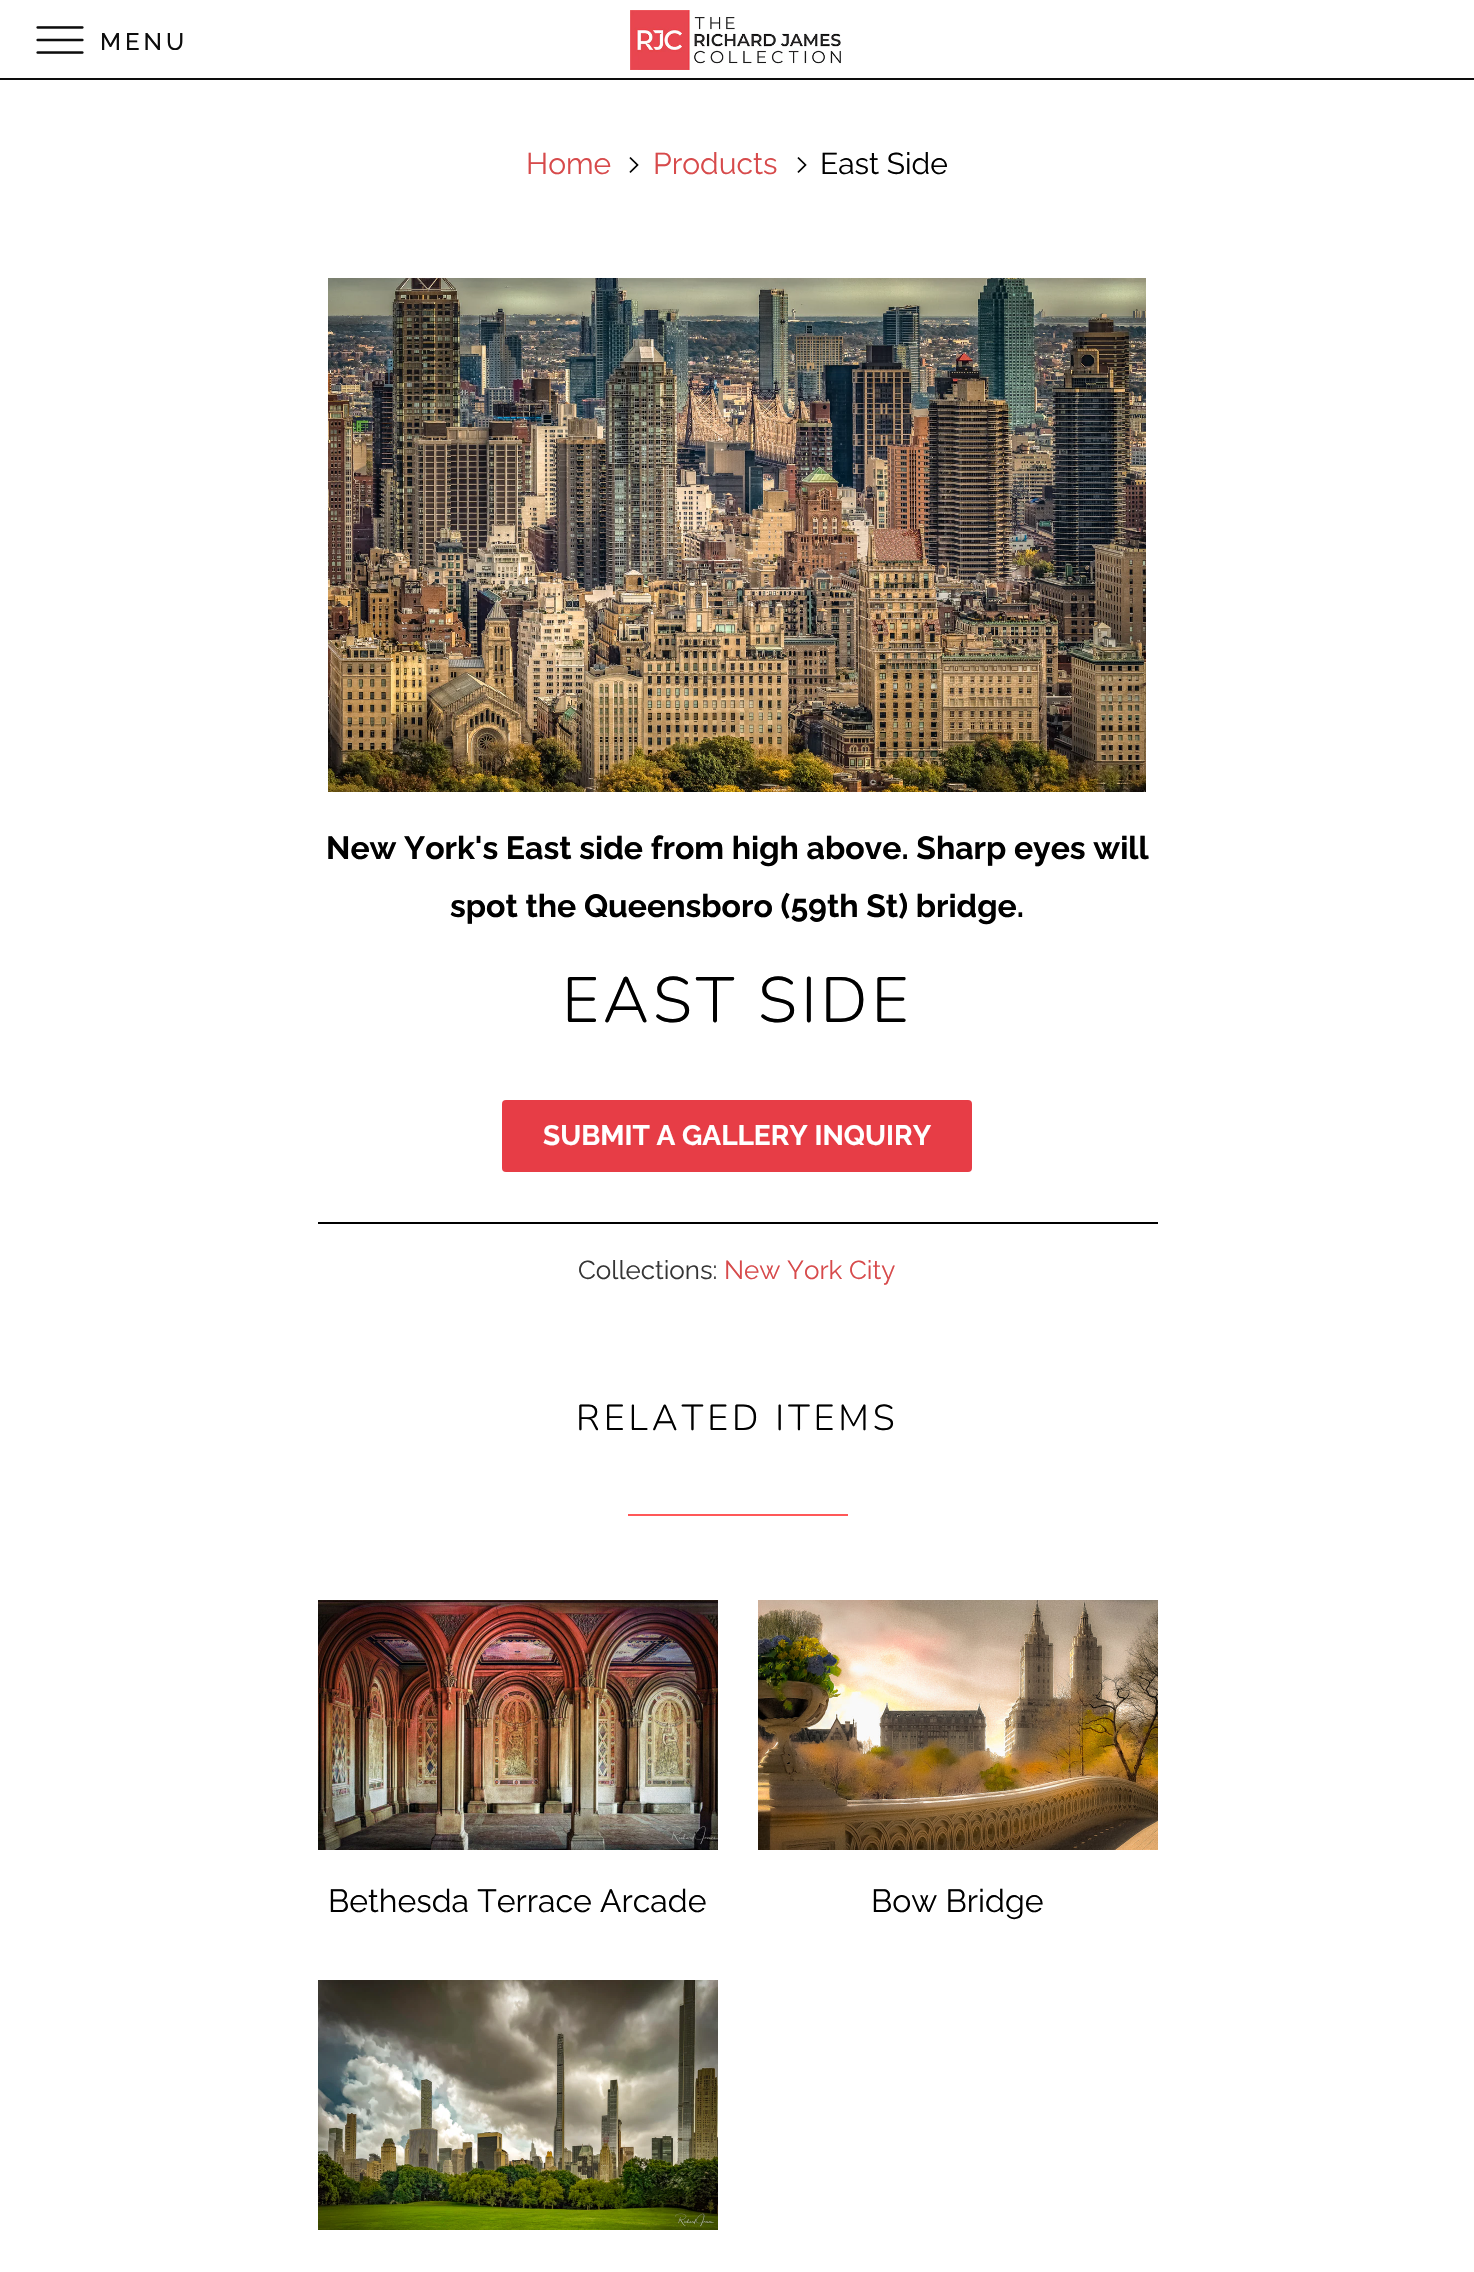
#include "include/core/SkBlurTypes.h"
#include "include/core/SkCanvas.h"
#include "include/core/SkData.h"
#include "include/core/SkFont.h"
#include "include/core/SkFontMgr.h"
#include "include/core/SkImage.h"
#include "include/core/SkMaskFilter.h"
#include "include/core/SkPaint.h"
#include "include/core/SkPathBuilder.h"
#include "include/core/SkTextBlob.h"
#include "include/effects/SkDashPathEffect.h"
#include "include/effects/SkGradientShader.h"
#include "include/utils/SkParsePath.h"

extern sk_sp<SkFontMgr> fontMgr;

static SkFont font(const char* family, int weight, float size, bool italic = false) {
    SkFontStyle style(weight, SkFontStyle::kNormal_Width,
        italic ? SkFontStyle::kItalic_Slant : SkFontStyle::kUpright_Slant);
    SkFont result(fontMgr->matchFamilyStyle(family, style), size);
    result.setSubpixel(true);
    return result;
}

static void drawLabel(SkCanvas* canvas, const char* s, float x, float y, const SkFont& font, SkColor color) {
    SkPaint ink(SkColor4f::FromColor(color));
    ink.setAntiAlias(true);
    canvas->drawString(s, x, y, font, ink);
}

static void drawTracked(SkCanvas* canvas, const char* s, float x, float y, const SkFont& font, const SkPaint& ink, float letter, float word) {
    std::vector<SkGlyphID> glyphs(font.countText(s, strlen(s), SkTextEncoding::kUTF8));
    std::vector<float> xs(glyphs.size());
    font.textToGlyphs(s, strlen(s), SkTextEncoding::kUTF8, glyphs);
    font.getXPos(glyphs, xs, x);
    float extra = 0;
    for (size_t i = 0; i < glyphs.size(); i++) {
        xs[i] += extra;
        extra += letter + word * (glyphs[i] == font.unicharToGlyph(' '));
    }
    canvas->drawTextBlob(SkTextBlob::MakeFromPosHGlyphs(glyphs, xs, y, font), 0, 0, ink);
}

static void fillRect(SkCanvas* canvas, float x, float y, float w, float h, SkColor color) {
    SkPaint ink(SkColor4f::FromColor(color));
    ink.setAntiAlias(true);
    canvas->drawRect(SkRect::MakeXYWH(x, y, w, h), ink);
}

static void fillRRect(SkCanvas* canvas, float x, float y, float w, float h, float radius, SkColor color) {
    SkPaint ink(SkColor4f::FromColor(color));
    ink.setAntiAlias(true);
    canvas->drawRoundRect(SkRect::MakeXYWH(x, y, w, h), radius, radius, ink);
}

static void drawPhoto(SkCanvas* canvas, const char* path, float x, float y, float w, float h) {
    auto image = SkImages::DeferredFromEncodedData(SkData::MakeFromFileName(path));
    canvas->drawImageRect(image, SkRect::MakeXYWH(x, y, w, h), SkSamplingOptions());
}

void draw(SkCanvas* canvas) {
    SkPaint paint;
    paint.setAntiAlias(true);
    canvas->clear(0xFFFFFFFF);
    fillRect(canvas, 0, 78, 1474, 2, 0xFF0D0D0D);
    drawPhoto(canvas, "assets/img1.png", 36, 26, 48, 28);
    SkFont font1 = font("Raleway", 500, 24);
    paint.setColor(0xFF0D0D0D);
    drawTracked(canvas, "MENU", 100, 50, font1, paint, 4, 0);
    drawPhoto(canvas, "assets/img2.png", 630, 10, 211, 60);
    SkFont font2 = font("Raleway", 400, 30);
    drawLabel(canvas, "Home", 526, 174, font2, 0xFFD74A4B);
    drawPhoto(canvas, "assets/img3.png", 629, 157, 10, 16);
    drawLabel(canvas, "Products", 653, 174, font2, 0xFFD74A4B);
    drawPhoto(canvas, "assets/img3.png", 797, 157, 10, 16);
    drawLabel(canvas, "East Side", 820, 174, font2, 0xFF000000);
    drawPhoto(canvas, "assets/img4.png", 328, 278, 818, 514);
    SkFont font3 = font("Raleway", 700, 32);
    drawLabel(canvas, "New York's East side from high above. Sharp eyes will", 326, 859, font3, 0xFF000000);
    drawLabel(canvas, "spot the Queensboro (59th St) bridge.", 450, 917, font3, 0xFF000000);
    SkFont font4 = font("Nunito", 300, 64);
    paint.setColor(0xFF000000);
    drawTracked(canvas, "EAST SIDE", 562, 1022, font4, paint, 4, 0);
    fillRRect(canvas, 502, 1100, 470, 72, 4, 0xFFE73D46);
    SkFont font5 = font("Raleway", 700, 28);
    drawLabel(canvas, "SUBMIT A GALLERY INQUIRY", 543, 1145, font5, 0xFFFFFFFF);
    fillRect(canvas, 318, 1222, 840, 2, 0xFF000000);
    SkFont font6 = font("Raleway", 400, 26);
    drawLabel(canvas, "Collections:", 578, 1279, font6, 0xFF363636);
    drawLabel(canvas, "New York City", 724, 1279, font6, 0xFFD74A4B);
    SkFont font7 = font("Nunito", 300, 36);
    drawTracked(canvas, "RELATED ITEMS", 576, 1430, font7, paint, 4, 0);
    fillRect(canvas, 628, 1514, 220, 2, 0xFFFF5858);
    drawPhoto(canvas, "assets/img5.png", 318, 1600, 400, 250);
    SkFont font8 = font("Raleway", 400, 32);
    drawLabel(canvas, "Bethesda Terrace Arcade", 328, 1912, font8, 0xFF000000);
    drawPhoto(canvas, "assets/img6.png", 758, 1600, 400, 250);
    drawLabel(canvas, "Bow Bridge", 871, 1912, font8, 0xFF000000);
    drawPhoto(canvas, "assets/img7.png", 318, 1980, 400, 250);
}
